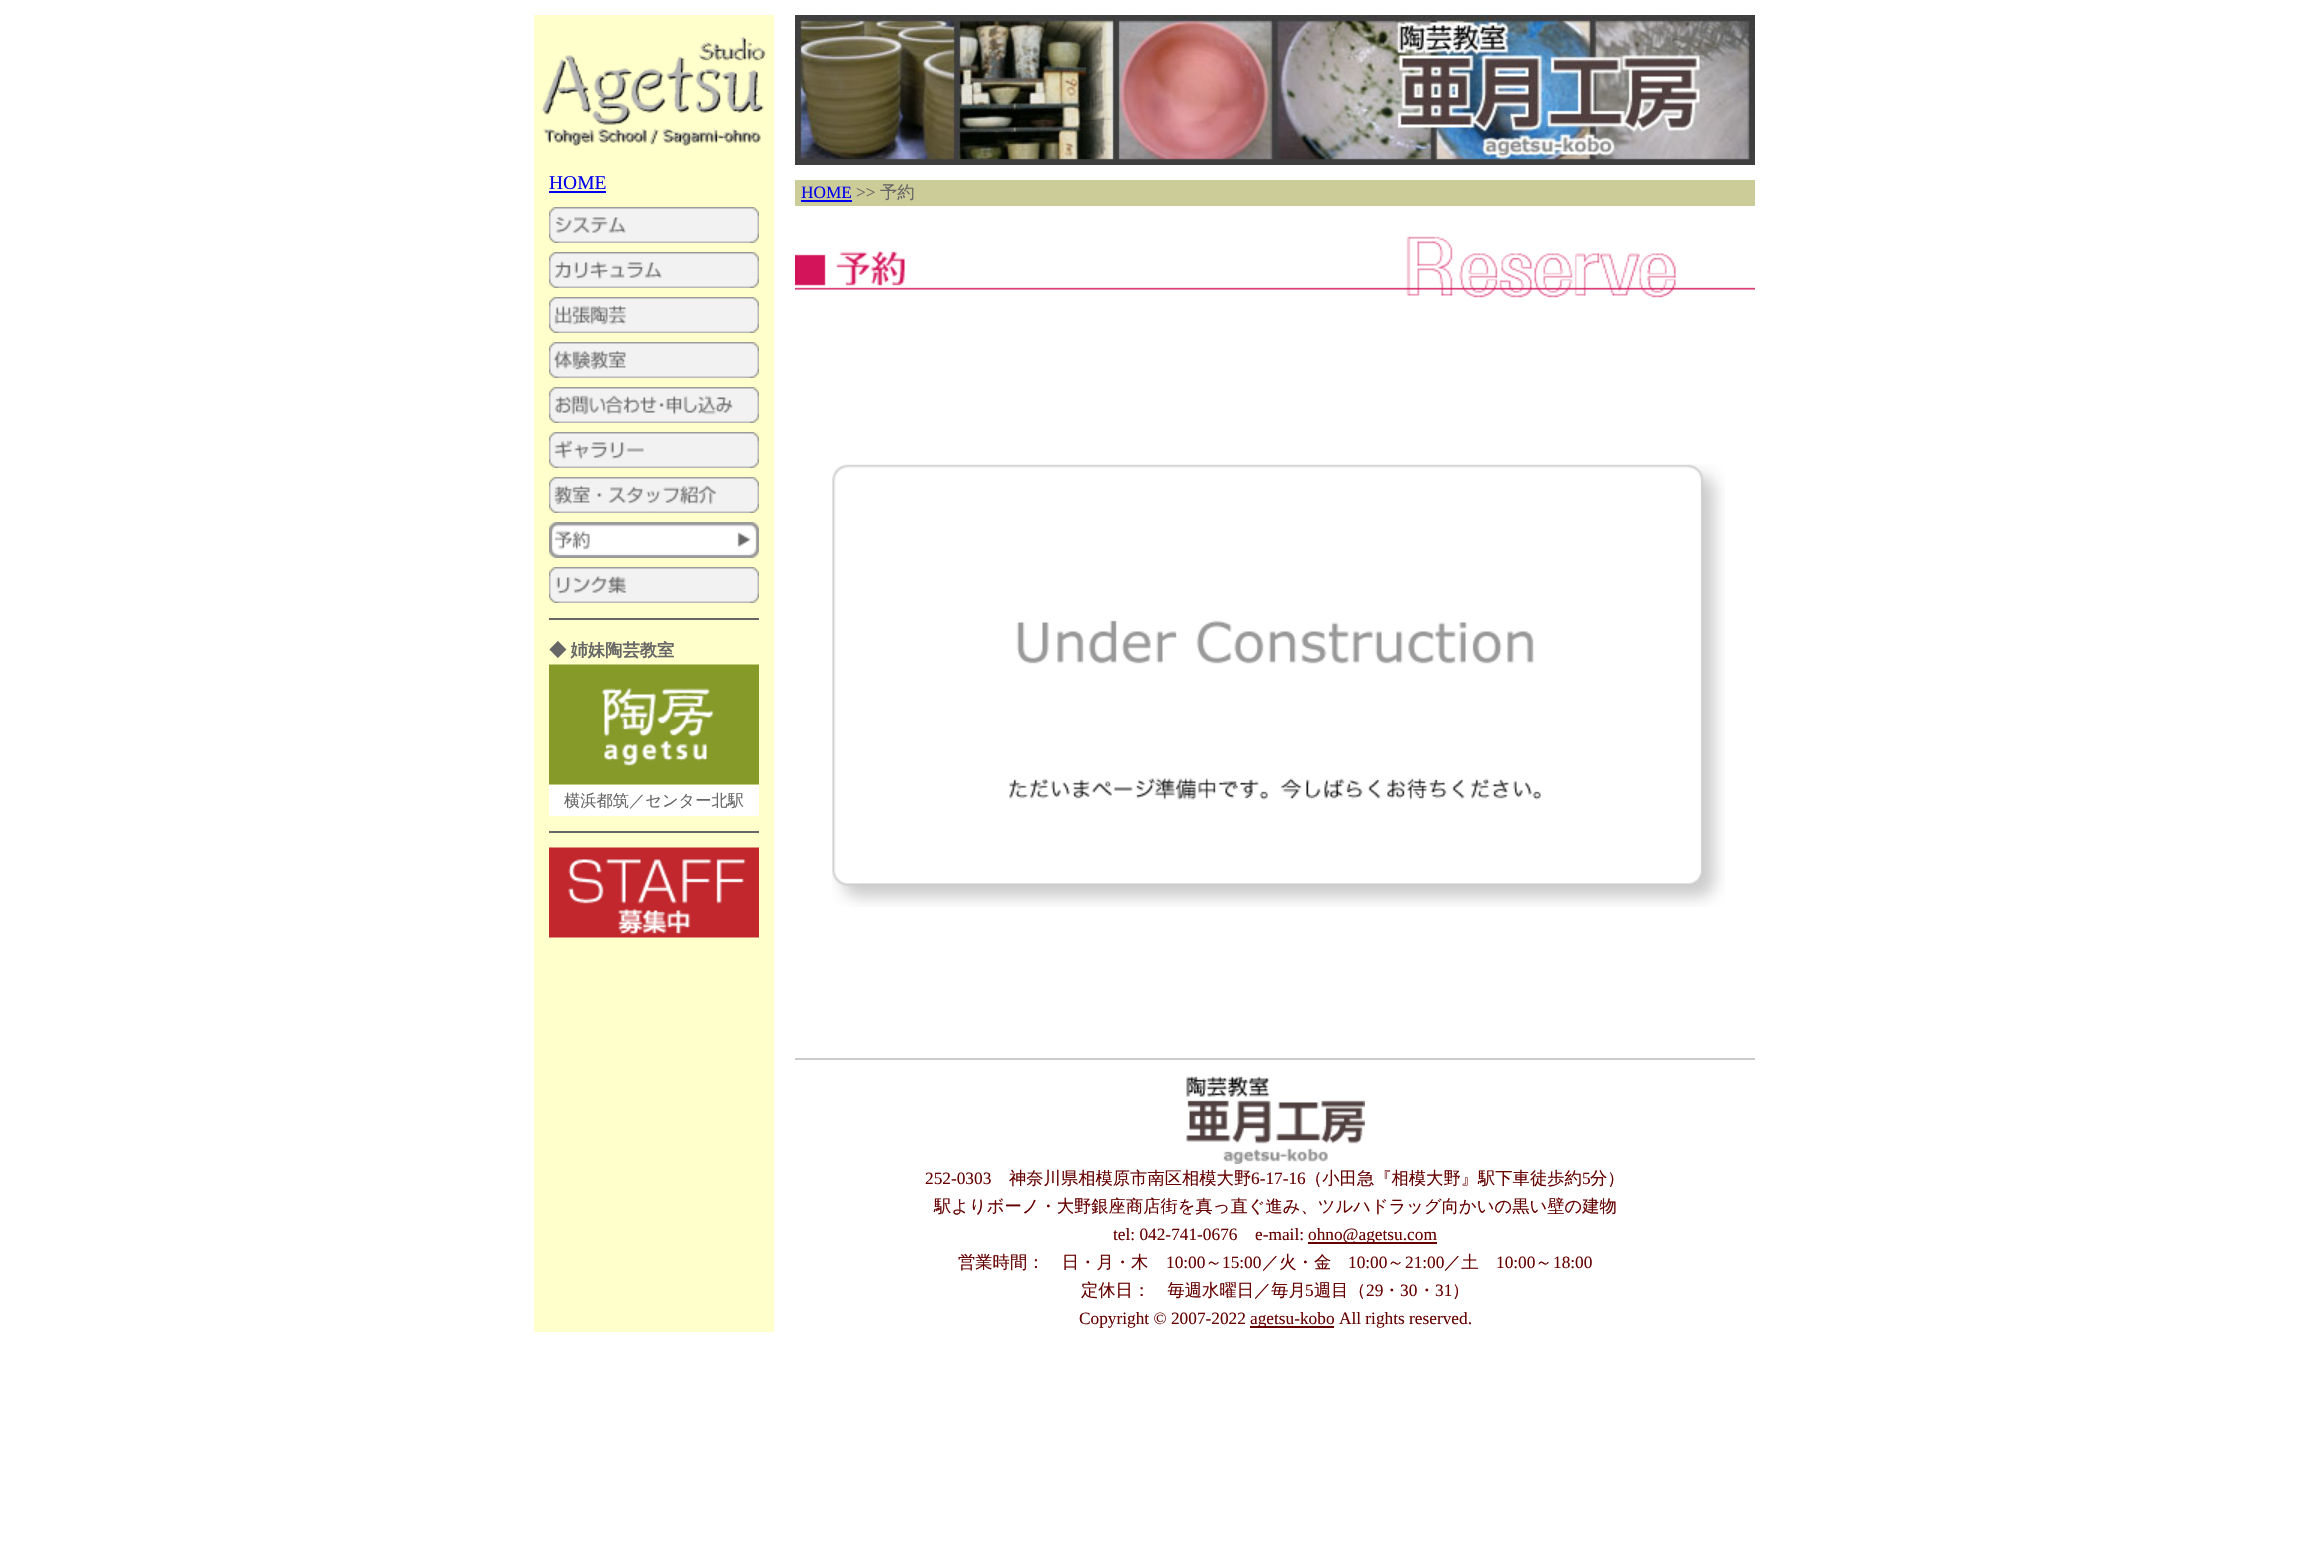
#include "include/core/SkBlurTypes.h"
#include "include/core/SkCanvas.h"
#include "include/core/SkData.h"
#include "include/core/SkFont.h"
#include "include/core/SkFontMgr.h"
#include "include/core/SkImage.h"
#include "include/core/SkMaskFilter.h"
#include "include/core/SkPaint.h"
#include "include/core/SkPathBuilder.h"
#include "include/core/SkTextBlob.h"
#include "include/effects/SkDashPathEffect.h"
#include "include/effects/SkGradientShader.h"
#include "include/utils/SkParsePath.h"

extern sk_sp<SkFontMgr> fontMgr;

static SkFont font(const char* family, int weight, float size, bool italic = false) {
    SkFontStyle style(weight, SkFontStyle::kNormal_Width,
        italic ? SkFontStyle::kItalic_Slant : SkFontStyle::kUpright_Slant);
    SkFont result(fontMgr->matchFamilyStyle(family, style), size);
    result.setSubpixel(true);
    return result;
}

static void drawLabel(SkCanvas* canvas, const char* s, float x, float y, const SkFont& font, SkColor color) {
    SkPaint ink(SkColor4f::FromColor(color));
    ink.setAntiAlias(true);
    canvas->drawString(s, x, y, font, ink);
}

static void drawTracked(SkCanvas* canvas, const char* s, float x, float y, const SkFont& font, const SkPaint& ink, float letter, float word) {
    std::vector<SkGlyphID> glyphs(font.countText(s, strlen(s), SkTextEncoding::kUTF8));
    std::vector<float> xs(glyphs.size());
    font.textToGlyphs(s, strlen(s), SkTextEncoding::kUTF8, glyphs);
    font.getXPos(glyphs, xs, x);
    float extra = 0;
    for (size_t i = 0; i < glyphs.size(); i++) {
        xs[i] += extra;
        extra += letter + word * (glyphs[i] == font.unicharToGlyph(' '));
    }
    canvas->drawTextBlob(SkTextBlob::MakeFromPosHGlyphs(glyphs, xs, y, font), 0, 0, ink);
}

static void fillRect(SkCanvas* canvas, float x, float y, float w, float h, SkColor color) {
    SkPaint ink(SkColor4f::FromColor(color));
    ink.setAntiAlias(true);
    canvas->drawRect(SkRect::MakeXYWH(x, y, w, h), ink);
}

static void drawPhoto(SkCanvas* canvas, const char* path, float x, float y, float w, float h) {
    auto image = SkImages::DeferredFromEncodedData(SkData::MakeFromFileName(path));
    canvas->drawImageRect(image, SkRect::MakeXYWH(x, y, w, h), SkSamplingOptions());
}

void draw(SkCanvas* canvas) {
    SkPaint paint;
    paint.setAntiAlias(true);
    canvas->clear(0xFFFFFFFF);
    fillRect(canvas, 534, 15, 240, 1317, 0xFFFFFFCC);
    drawPhoto(canvas, "assets/img1.png", 541, 36, 225, 110);
    SkFont font1 = font("Liberation Serif", 400, 19.5f);
    drawLabel(canvas, "HOME", 549, 189, font1, 0xFF0000EE);
    fillRect(canvas, 549, 191, 57, 2, 0xFF0000EE);
    drawPhoto(canvas, "assets/img2.png", 549, 207, 210, 36);
    drawPhoto(canvas, "assets/img3.png", 549, 252, 210, 36);
    drawPhoto(canvas, "assets/img4.png", 549, 297, 210, 36);
    drawPhoto(canvas, "assets/img5.png", 549, 342, 210, 36);
    drawPhoto(canvas, "assets/img6.png", 549, 387, 210, 36);
    drawPhoto(canvas, "assets/img7.png", 549, 432, 210, 36);
    drawPhoto(canvas, "assets/img8.png", 549, 477, 210, 36);
    drawPhoto(canvas, "assets/img9.png", 549, 522, 210, 36);
    drawPhoto(canvas, "assets/img10.png", 549, 567, 210, 36);
    fillRect(canvas, 549, 618, 210, 2, 0xFF666666);
    SkFont font2 = font("WenQuanYi Zen Hei", 700, 17.3f);
    paint.setColor(0xFF666666);
    drawTracked(canvas, "◆ 姉妹陶芸教室", 549, 656, font2, paint, 0, -1);
    drawPhoto(canvas, "assets/img11.png", 549, 664, 210, 121);
    fillRect(canvas, 549, 785, 210, 31, 0xFFFFFFFF);
    SkFont font3 = font("WenQuanYi Zen Hei", 500, 16.25f);
    drawLabel(canvas, "横浜都筑／センター北駅", 564, 806, font3, 0xFF666666);
    fillRect(canvas, 549, 831, 210, 2, 0xFF666666);
    drawPhoto(canvas, "assets/img12.png", 549, 847, 210, 91);
    drawPhoto(canvas, "assets/img13.png", 795, 15, 960, 150);
    fillRect(canvas, 795, 180, 960, 26, 0xFFCCCC99);
    SkFont font4 = font("Liberation Serif", 400, 17.3f);
    drawLabel(canvas, "HOME", 801, 198, font4, 0xFF0000EE);
    fillRect(canvas, 801, 200, 51, 2, 0xFF0000EE);
    drawLabel(canvas, ">>", 856, 198, font4, 0xFF666666);
    SkFont font5 = font("WenQuanYi Zen Hei", 500, 17.3f);
    drawLabel(canvas, "予約", 880, 198, font5, 0xFF666666);
    drawPhoto(canvas, "assets/img14.png", 795, 236, 960, 62);
    drawPhoto(canvas, "assets/img15.png", 832, 464, 893, 443);
    fillRect(canvas, 795, 1058, 960, 2, 0xFFCCCCCC);
    drawPhoto(canvas, "assets/img16.png", 1186, 1076, 179, 88);
    drawLabel(canvas, "252-0303", 925, 1184, font4, 0xFF660000);
    drawLabel(canvas, "神奈川県相模原市南区相模大野", 1009, 1184, font5, 0xFF660000);
    drawLabel(canvas, "6-17-16", 1251, 1184, font4, 0xFF660000);
    drawLabel(canvas, "（小田急『相模大野』駅下車徒歩約", 1305, 1184, font5, 0xFF660000);
    drawLabel(canvas, "5", 1582, 1184, font4, 0xFF660000);
    drawLabel(canvas, "分）", 1590, 1184, font5, 0xFF660000);
    drawLabel(canvas, "駅よりボーノ・大野銀座商店街を真っ直ぐ進み、ツルハドラッグ向かいの黒い壁の建物", 934, 1212, font5, 0xFF660000);
    drawLabel(canvas, "tel: 042-741-0676", 1113, 1240, font4, 0xFF660000);
    drawLabel(canvas, "e-mail:", 1255, 1240, font4, 0xFF660000);
    fillRect(canvas, 1308, 1242, 129, 2, 0xFF660000);
    drawLabel(canvas, "ohno@agetsu.com", 1308, 1240, font4, 0xFF660000);
    drawLabel(canvas, "営業時間：　日・月・木", 958, 1268, font5, 0xFF660000);
    drawLabel(canvas, "10:00", 1166, 1268, font4, 0xFF660000);
    drawLabel(canvas, "～", 1205, 1268, font5, 0xFF660000);
    drawLabel(canvas, "15:00", 1222, 1268, font4, 0xFF660000);
    drawLabel(canvas, "／火・金", 1262, 1268, font5, 0xFF660000);
    drawLabel(canvas, "10:00", 1348, 1268, font4, 0xFF660000);
    drawLabel(canvas, "～", 1387, 1268, font5, 0xFF660000);
    drawLabel(canvas, "21:00", 1405, 1268, font4, 0xFF660000);
    drawLabel(canvas, "／土", 1444, 1268, font5, 0xFF660000);
    drawLabel(canvas, "10:00", 1496, 1268, font4, 0xFF660000);
    drawLabel(canvas, "～", 1535, 1268, font5, 0xFF660000);
    drawLabel(canvas, "18:00", 1553, 1268, font4, 0xFF660000);
    drawLabel(canvas, "定休日：　毎週水曜日／毎月", 1081, 1296, font5, 0xFF660000);
    drawLabel(canvas, "5", 1305, 1296, font4, 0xFF660000);
    drawLabel(canvas, "週目（", 1314, 1296, font5, 0xFF660000);
    drawLabel(canvas, "29", 1366, 1296, font4, 0xFF660000);
    drawLabel(canvas, "・", 1383, 1296, font5, 0xFF660000);
    drawLabel(canvas, "30", 1400, 1296, font4, 0xFF660000);
    drawLabel(canvas, "・", 1418, 1296, font5, 0xFF660000);
    drawLabel(canvas, "31", 1435, 1296, font4, 0xFF660000);
    drawLabel(canvas, "）", 1452, 1296, font5, 0xFF660000);
    drawLabel(canvas, "Copyright © 2007-2022", 1079, 1324, font4, 0xFF660000);
    fillRect(canvas, 1250, 1326, 84, 2, 0xFF660000);
    drawLabel(canvas, "agetsu-kobo All rights reserved.", 1250, 1324, font4, 0xFF660000);
}
